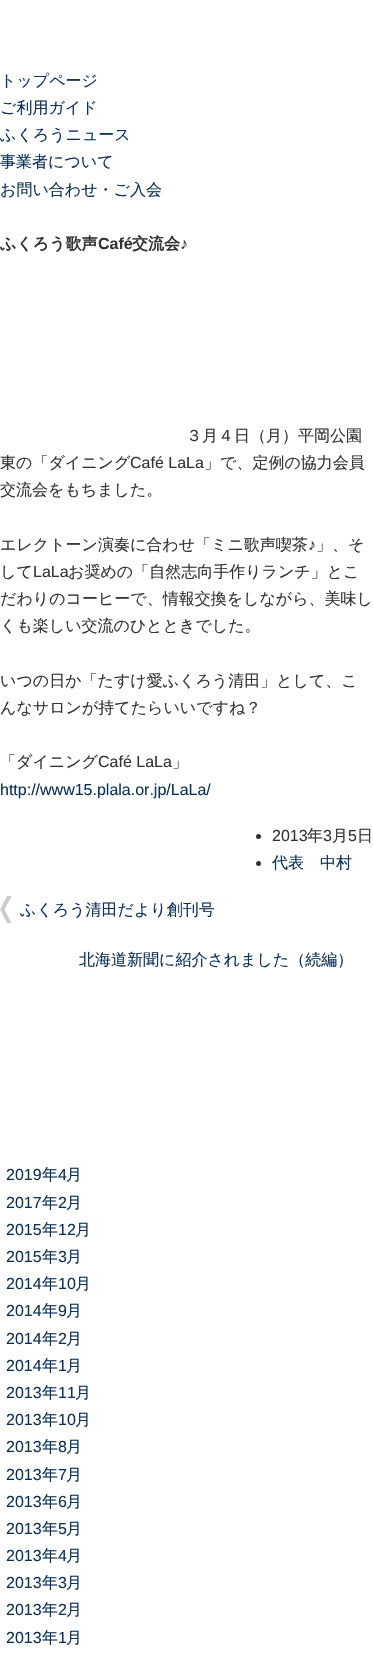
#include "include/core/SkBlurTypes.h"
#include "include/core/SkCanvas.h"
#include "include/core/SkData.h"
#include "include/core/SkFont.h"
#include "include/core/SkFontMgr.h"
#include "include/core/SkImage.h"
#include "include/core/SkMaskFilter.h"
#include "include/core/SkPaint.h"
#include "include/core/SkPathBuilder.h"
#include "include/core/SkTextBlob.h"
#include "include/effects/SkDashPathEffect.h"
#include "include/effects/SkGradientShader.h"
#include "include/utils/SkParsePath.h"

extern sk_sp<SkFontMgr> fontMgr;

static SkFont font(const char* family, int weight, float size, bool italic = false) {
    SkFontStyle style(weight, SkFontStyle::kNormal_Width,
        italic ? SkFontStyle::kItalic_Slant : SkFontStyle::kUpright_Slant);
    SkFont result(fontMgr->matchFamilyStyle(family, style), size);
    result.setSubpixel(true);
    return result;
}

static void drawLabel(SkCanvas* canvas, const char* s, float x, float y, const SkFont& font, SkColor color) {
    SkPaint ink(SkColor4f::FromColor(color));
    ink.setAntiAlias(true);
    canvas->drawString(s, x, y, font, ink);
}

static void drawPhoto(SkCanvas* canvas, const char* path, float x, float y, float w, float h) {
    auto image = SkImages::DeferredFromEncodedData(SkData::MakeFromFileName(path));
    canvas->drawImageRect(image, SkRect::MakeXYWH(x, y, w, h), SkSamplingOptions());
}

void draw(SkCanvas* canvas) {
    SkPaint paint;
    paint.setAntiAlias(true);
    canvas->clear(0xFFFFFFFF);
    SkFont font1 = font("WenQuanYi Zen Hei", 500, 16);
    drawLabel(canvas, "トップページ", 0, 86, font1, 0xFF0C3158);
    drawLabel(canvas, "ご利用ガイド", 0, 113, font1, 0xFF0C3158);
    drawLabel(canvas, "ふくろうニュース", 0, 140, font1, 0xFF0C3158);
    drawLabel(canvas, "事業者について", 0, 167, font1, 0xFF0C3158);
    drawLabel(canvas, "お問い合わせ・ご入会", 0, 195, font1, 0xFF0C3158);
    SkFont font2 = font("WenQuanYi Zen Hei", 700, 16);
    drawLabel(canvas, "ふくろう歌声", 0, 249, font2, 0xFF333333);
    SkFont font3 = font("Liberation Sans", 700, 16);
    drawLabel(canvas, "Café", 98, 249, font3, 0xFF333333);
    drawLabel(canvas, "交流会", 132, 249, font2, 0xFF333333);
    drawLabel(canvas, "♪", 180, 249, font3, 0xFF333333);
    drawLabel(canvas, "３月４日（月）平岡公園", 186, 441, font1, 0xFF333333);
    drawLabel(canvas, "東の「ダイニング", 0, 468, font1, 0xFF333333);
    SkFont font4 = font("Liberation Sans", 400, 16);
    drawLabel(canvas, "Café LaLa", 130, 468, font4, 0xFF333333);
    drawLabel(canvas, "」で、定例の協力会員", 204, 468, font1, 0xFF333333);
    drawLabel(canvas, "交流会をもちました。", 0, 495, font1, 0xFF333333);
    drawLabel(canvas, "エレクトーン演奏に合わせ「ミニ歌声喫茶", 0, 550, font1, 0xFF333333);
    drawLabel(canvas, "♪", 308, 550, font4, 0xFF333333);
    drawLabel(canvas, "」、そ", 316, 550, font1, 0xFF333333);
    drawLabel(canvas, "して", 0, 577, font1, 0xFF333333);
    drawLabel(canvas, "LaLa", 33, 577, font4, 0xFF333333);
    drawLabel(canvas, "お奨めの「自然志向手作りランチ」とこ", 68, 577, font1, 0xFF333333);
    drawLabel(canvas, "だわりのコーヒーで、情報交換をしながら、美味し", 0, 604, font1, 0xFF333333);
    drawLabel(canvas, "くも楽しい交流のひとときでした。", 0, 631, font1, 0xFF333333);
    drawLabel(canvas, "いつの日か「たすけ愛ふくろう清田」として、こ", 0, 686, font1, 0xFF333333);
    drawLabel(canvas, "んなサロンが持てたらいいですね？", 0, 713, font1, 0xFF333333);
    drawLabel(canvas, "「ダイニング", 0, 767, font1, 0xFF333333);
    drawLabel(canvas, "Café LaLa", 98, 767, font4, 0xFF333333);
    drawLabel(canvas, "」", 172, 767, font1, 0xFF333333);
    drawLabel(canvas, "http://www15.plala.or.jp/LaLa/", 0, 795, font4, 0xFF0C3158);
    paint.setColor(0xFF333333);
    canvas->drawCircle(258.5f, 836.5f, 2.5f, paint);
    drawLabel(canvas, "2013", 272, 841, font4, 0xFF333333);
    drawLabel(canvas, "年", 307, 841, font1, 0xFF333333);
    drawLabel(canvas, "3", 323, 841, font4, 0xFF333333);
    drawLabel(canvas, "月", 332, 841, font1, 0xFF333333);
    drawLabel(canvas, "5", 348, 841, font4, 0xFF333333);
    drawLabel(canvas, "日", 357, 841, font1, 0xFF333333);
    canvas->drawCircle(258.5f, 863.5f, 2.5f, paint);
    drawLabel(canvas, "代表　中村", 272, 868, font1, 0xFF0C3158);
    drawPhoto(canvas, "assets/img1.png", 0, 896, 12, 27);
    drawLabel(canvas, "ふくろう清田だより創刊号", 20, 915, font1, 0xFF0C3158);
    drawLabel(canvas, "北海道新聞に紹介されました（続編）", 79, 965, font1, 0xFF0C3158);
    drawLabel(canvas, "2019", 6, 1180, font4, 0xFF0C3158);
    drawLabel(canvas, "年", 42, 1180, font1, 0xFF0C3158);
    drawLabel(canvas, "4", 58, 1180, font4, 0xFF0C3158);
    drawLabel(canvas, "月", 66, 1180, font1, 0xFF0C3158);
    drawLabel(canvas, "2017", 6, 1208, font4, 0xFF0C3158);
    drawLabel(canvas, "年", 42, 1208, font1, 0xFF0C3158);
    drawLabel(canvas, "2", 58, 1208, font4, 0xFF0C3158);
    drawLabel(canvas, "月", 66, 1208, font1, 0xFF0C3158);
    drawLabel(canvas, "2015", 6, 1235, font4, 0xFF0C3158);
    drawLabel(canvas, "年", 42, 1235, font1, 0xFF0C3158);
    drawLabel(canvas, "12", 58, 1235, font4, 0xFF0C3158);
    drawLabel(canvas, "月", 75, 1235, font1, 0xFF0C3158);
    drawLabel(canvas, "2015", 6, 1262, font4, 0xFF0C3158);
    drawLabel(canvas, "年", 42, 1262, font1, 0xFF0C3158);
    drawLabel(canvas, "3", 58, 1262, font4, 0xFF0C3158);
    drawLabel(canvas, "月", 66, 1262, font1, 0xFF0C3158);
    drawLabel(canvas, "2014", 6, 1289, font4, 0xFF0C3158);
    drawLabel(canvas, "年", 42, 1289, font1, 0xFF0C3158);
    drawLabel(canvas, "10", 58, 1289, font4, 0xFF0C3158);
    drawLabel(canvas, "月", 75, 1289, font1, 0xFF0C3158);
    drawLabel(canvas, "2014", 6, 1316, font4, 0xFF0C3158);
    drawLabel(canvas, "年", 42, 1316, font1, 0xFF0C3158);
    drawLabel(canvas, "9", 58, 1316, font4, 0xFF0C3158);
    drawLabel(canvas, "月", 66, 1316, font1, 0xFF0C3158);
    drawLabel(canvas, "2014", 6, 1344, font4, 0xFF0C3158);
    drawLabel(canvas, "年", 42, 1344, font1, 0xFF0C3158);
    drawLabel(canvas, "2", 58, 1344, font4, 0xFF0C3158);
    drawLabel(canvas, "月", 66, 1344, font1, 0xFF0C3158);
    drawLabel(canvas, "2014", 6, 1371, font4, 0xFF0C3158);
    drawLabel(canvas, "年", 42, 1371, font1, 0xFF0C3158);
    drawLabel(canvas, "1", 58, 1371, font4, 0xFF0C3158);
    drawLabel(canvas, "月", 66, 1371, font1, 0xFF0C3158);
    drawLabel(canvas, "2013", 6, 1398, font4, 0xFF0C3158);
    drawLabel(canvas, "年", 42, 1398, font1, 0xFF0C3158);
    drawLabel(canvas, "11", 58, 1398, font4, 0xFF0C3158);
    drawLabel(canvas, "月", 75, 1398, font1, 0xFF0C3158);
    drawLabel(canvas, "2013", 6, 1425, font4, 0xFF0C3158);
    drawLabel(canvas, "年", 42, 1425, font1, 0xFF0C3158);
    drawLabel(canvas, "10", 58, 1425, font4, 0xFF0C3158);
    drawLabel(canvas, "月", 75, 1425, font1, 0xFF0C3158);
    drawLabel(canvas, "2013", 6, 1452, font4, 0xFF0C3158);
    drawLabel(canvas, "年", 42, 1452, font1, 0xFF0C3158);
    drawLabel(canvas, "8", 58, 1452, font4, 0xFF0C3158);
    drawLabel(canvas, "月", 66, 1452, font1, 0xFF0C3158);
    drawLabel(canvas, "2013", 6, 1480, font4, 0xFF0C3158);
    drawLabel(canvas, "年", 42, 1480, font1, 0xFF0C3158);
    drawLabel(canvas, "7", 58, 1480, font4, 0xFF0C3158);
    drawLabel(canvas, "月", 66, 1480, font1, 0xFF0C3158);
    drawLabel(canvas, "2013", 6, 1507, font4, 0xFF0C3158);
    drawLabel(canvas, "年", 42, 1507, font1, 0xFF0C3158);
    drawLabel(canvas, "6", 58, 1507, font4, 0xFF0C3158);
    drawLabel(canvas, "月", 66, 1507, font1, 0xFF0C3158);
    drawLabel(canvas, "2013", 6, 1534, font4, 0xFF0C3158);
    drawLabel(canvas, "年", 42, 1534, font1, 0xFF0C3158);
    drawLabel(canvas, "5", 58, 1534, font4, 0xFF0C3158);
    drawLabel(canvas, "月", 66, 1534, font1, 0xFF0C3158);
    drawLabel(canvas, "2013", 6, 1561, font4, 0xFF0C3158);
    drawLabel(canvas, "年", 42, 1561, font1, 0xFF0C3158);
    drawLabel(canvas, "4", 58, 1561, font4, 0xFF0C3158);
    drawLabel(canvas, "月", 66, 1561, font1, 0xFF0C3158);
    drawLabel(canvas, "2013", 6, 1588, font4, 0xFF0C3158);
    drawLabel(canvas, "年", 42, 1588, font1, 0xFF0C3158);
    drawLabel(canvas, "3", 58, 1588, font4, 0xFF0C3158);
    drawLabel(canvas, "月", 66, 1588, font1, 0xFF0C3158);
    drawLabel(canvas, "2013", 6, 1615, font4, 0xFF0C3158);
    drawLabel(canvas, "年", 42, 1615, font1, 0xFF0C3158);
    drawLabel(canvas, "2", 58, 1615, font4, 0xFF0C3158);
    drawLabel(canvas, "月", 66, 1615, font1, 0xFF0C3158);
    drawLabel(canvas, "2013", 6, 1643, font4, 0xFF0C3158);
    drawLabel(canvas, "年", 42, 1643, font1, 0xFF0C3158);
    drawLabel(canvas, "1", 58, 1643, font4, 0xFF0C3158);
    drawLabel(canvas, "月", 66, 1643, font1, 0xFF0C3158);
}
